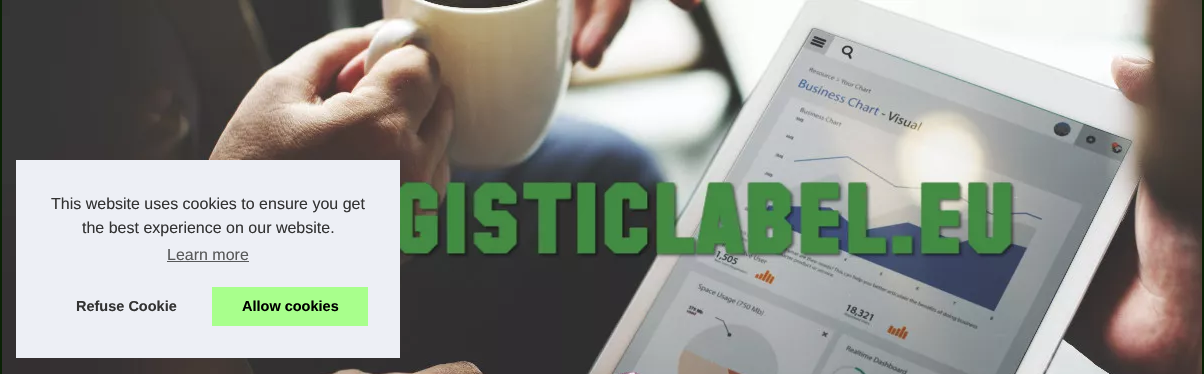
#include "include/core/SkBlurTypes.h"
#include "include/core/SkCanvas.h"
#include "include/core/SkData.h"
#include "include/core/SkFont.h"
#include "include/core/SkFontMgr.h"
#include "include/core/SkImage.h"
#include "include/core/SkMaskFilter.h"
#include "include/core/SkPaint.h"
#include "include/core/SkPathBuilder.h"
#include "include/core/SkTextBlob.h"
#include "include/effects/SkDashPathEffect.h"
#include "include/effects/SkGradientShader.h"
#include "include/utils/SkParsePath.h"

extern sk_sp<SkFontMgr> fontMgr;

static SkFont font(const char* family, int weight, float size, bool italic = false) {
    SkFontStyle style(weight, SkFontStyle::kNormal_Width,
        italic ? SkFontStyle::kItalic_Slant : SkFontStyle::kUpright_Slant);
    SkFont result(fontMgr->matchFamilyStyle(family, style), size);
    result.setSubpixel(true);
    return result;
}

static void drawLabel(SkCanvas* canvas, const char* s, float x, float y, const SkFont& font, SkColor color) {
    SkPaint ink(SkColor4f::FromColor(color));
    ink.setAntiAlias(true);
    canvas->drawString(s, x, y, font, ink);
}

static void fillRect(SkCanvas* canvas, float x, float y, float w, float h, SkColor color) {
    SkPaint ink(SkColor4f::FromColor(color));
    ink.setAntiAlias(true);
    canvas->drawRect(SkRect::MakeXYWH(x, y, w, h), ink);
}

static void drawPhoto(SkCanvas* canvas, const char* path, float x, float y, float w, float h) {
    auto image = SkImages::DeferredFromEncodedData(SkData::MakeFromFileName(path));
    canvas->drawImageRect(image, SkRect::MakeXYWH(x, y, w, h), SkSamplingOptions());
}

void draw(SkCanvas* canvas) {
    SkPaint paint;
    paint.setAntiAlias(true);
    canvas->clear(0xFF0A2105);
    drawPhoto(canvas, "assets/img1.png", 2, 0, 1200, 374);
    fillRect(canvas, 16, 160, 384, 198, 0xFFEDEFF5);
    SkFont font1 = font("Liberation Sans", 400, 16);
    drawLabel(canvas, "This website uses cookies to ensure you get", 51, 209, font1, 0xFF333333);
    drawLabel(canvas, "the best experience on our website.", 82, 233, font1, 0xFF333333);
    drawLabel(canvas, "Learn more", 167, 260, font1, 0xFF58595A);
    fillRect(canvas, 167, 261, 82, 1, 0xFF58595A);
    SkFont font2 = font("Liberation Sans", 700, 14.5f);
    drawLabel(canvas, "Refuse Cookie", 76, 311, font2, 0xFF333333);
    fillRect(canvas, 212, 287, 156, 39, 0xFFA8FF8C);
    drawLabel(canvas, "Allow cookies", 242, 311, font2, 0xFF000000);
}
